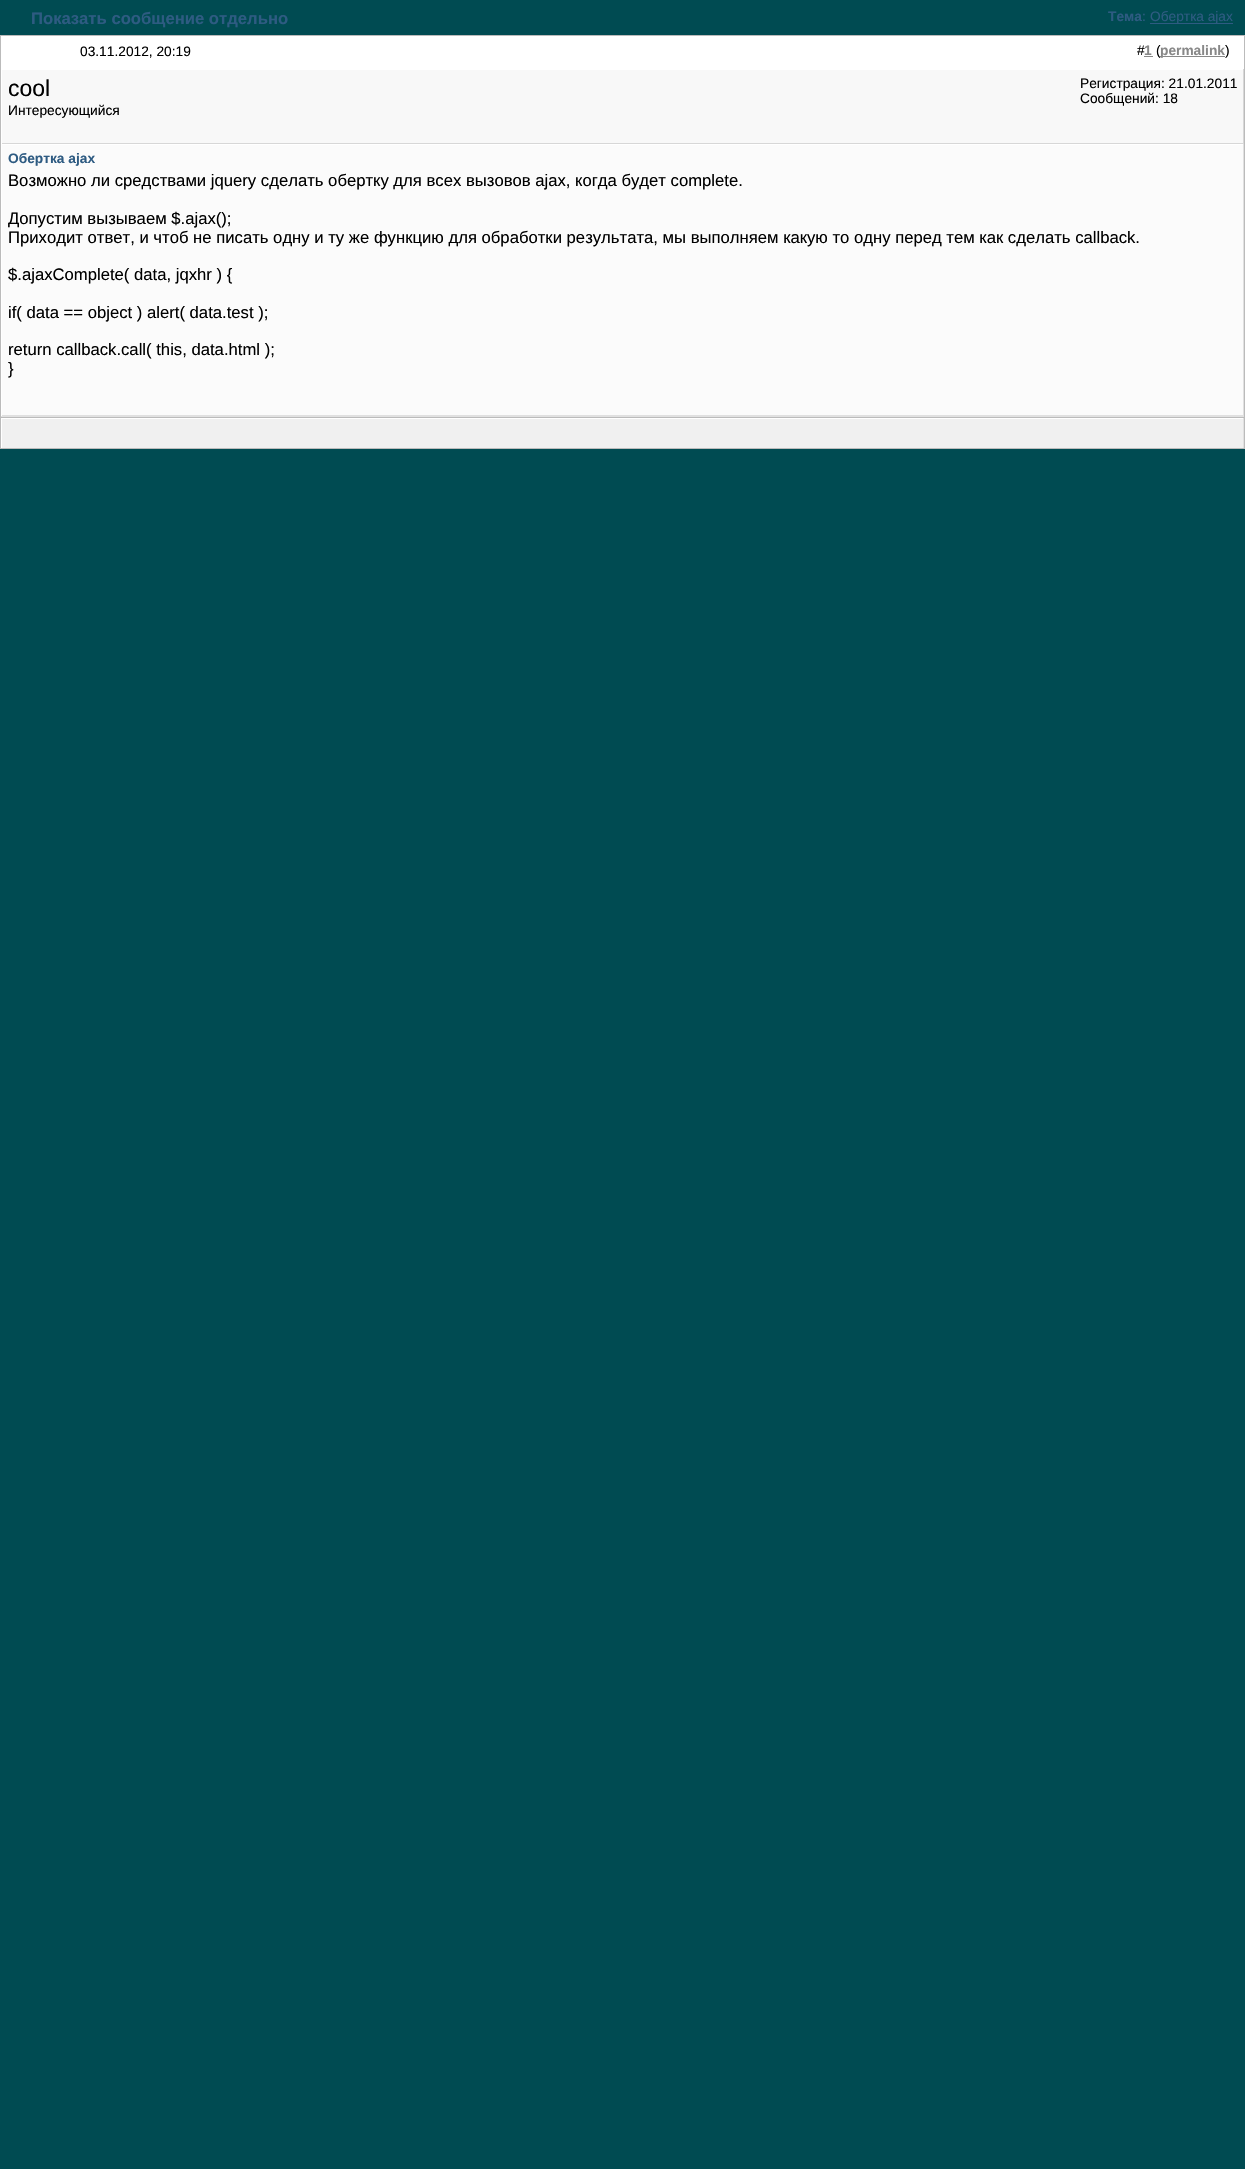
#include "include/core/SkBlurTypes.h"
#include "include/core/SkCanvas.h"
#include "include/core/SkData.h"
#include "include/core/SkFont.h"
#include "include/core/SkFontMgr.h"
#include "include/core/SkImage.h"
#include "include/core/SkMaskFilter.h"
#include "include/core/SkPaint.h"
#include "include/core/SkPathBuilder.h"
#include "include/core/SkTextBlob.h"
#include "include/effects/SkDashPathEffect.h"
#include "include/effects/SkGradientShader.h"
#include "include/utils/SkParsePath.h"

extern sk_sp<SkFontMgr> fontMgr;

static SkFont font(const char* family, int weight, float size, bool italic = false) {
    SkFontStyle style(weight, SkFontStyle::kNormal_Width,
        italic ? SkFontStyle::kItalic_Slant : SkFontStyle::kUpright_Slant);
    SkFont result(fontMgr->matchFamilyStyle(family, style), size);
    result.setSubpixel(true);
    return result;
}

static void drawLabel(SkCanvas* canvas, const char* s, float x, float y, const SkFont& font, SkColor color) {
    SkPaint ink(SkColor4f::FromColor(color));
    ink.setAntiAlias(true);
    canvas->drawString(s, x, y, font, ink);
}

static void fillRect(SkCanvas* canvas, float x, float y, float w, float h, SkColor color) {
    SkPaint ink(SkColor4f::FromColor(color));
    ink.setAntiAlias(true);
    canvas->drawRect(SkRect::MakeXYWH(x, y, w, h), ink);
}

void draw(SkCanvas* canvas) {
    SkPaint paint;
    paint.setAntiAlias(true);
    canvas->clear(0xFF004B52);
    SkFont font1 = font("Liberation Sans", 700, 16.67f);
    drawLabel(canvas, "Показать сообщение отдельно", 31, 24, font1, 0xFF2E5B82);
    SkFont font2 = font("Liberation Sans", 700, 13.75f);
    drawLabel(canvas, "Тема", 1108, 21, font2, 0xFF2E5B82);
    SkFont font3 = font("Liberation Sans", 400, 13.75f);
    drawLabel(canvas, ":", 1142, 21, font3, 0xFF2E5B82);
    fillRect(canvas, 1150, 23, 83, 1, 0xFF2E5B82);
    drawLabel(canvas, "Обертка ajax", 1150, 21, font3, 0xFF2E5B82);
    fillRect(canvas, 1, 416, 1243, 1, 0xFFE1E1E1);
    paint.setStroke(true);
    paint.setStrokeWidth(1);
    paint.setColor(0xFFBBBBBB);
    canvas->drawRect(SkRect::MakeXYWH(0.5f, 35.5f, 1244, 382), paint);
    fillRect(canvas, 1, 36, 1243, 34, 0xFFFFFFFF);
    drawLabel(canvas, "03.11.2012, 20:19", 80, 56, font3, 0xFF000000);
    drawLabel(canvas, "#", 1137, 55, font3, 0xFF000000);
    drawLabel(canvas, "1", 1144, 55, font2, 0xFF888888);
    fillRect(canvas, 1144, 56, 9, 1, 0xFF888888);
    drawLabel(canvas, "(", 1156, 55, font3, 0xFF000000);
    fillRect(canvas, 1160, 56, 65, 1, 0xFF888888);
    drawLabel(canvas, "permalink", 1160, 55, font2, 0xFF888888);
    drawLabel(canvas, ")", 1225, 55, font3, 0xFF000000);
    fillRect(canvas, 2, 70, 1241, 73, 0xFFF8F8F8);
    fillRect(canvas, 1243, 69, 1, 75, 0xFFD7D7D7);
    fillRect(canvas, 1, 143, 1243, 1, 0xFFD7D7D7);
    fillRect(canvas, 1, 69, 1, 75, 0xFFFFFFFF);
    SkFont font4 = font("Liberation Sans", 400, 23);
    drawLabel(canvas, "cool", 8, 96, font4, 0xFF000000);
    drawLabel(canvas, "Интересующийся", 8, 115, font3, 0xFF000000);
    drawLabel(canvas, "Регистрация: 21.01.2011", 1080, 88, font3, 0xFF000000);
    drawLabel(canvas, "Сообщений: 18", 1080, 103, font3, 0xFF000000);
    fillRect(canvas, 2, 145, 1241, 270, 0xFFFBFBFB);
    fillRect(canvas, 1, 144, 1243, 1, 0xFFFFFFFF);
    fillRect(canvas, 1243, 144, 1, 272, 0xFFE0E0E0);
    fillRect(canvas, 1, 415, 1243, 1, 0xFFE0E0E0);
    fillRect(canvas, 1, 144, 1, 272, 0xFFFFFFFF);
    drawLabel(canvas, "Обертка ajax", 8, 163, font2, 0xFF2E5B82);
    SkFont font5 = font("Liberation Sans", 400, 16.67f);
    drawLabel(canvas, "Возможно ли средствами jquery сделать обертку для всех вызовов ajax, когда будет complete.", 8, 186, font5, 0xFF000000);
    drawLabel(canvas, "Допустим вызываем $.ajax();", 8, 224, font5, 0xFF000000);
    drawLabel(canvas, "Приходит ответ, и чтоб не писать одну и ту же функцию для обработки результата, мы выполняем какую то одну перед тем как сделать callback.", 8, 243, font5, 0xFF000000);
    drawLabel(canvas, "$.ajaxComplete( data, jqxhr ) {", 8, 280, font5, 0xFF000000);
    drawLabel(canvas, "if( data == object ) alert( data.test );", 8, 318, font5, 0xFF000000);
    drawLabel(canvas, "return callback.call( this, data.html );", 8, 355, font5, 0xFF000000);
    drawLabel(canvas, "}", 8, 374, font5, 0xFF000000);
    fillRect(canvas, 1244, 418, 1, 31, 0xFFBBBBBB);
    fillRect(canvas, 0, 448, 1245, 1, 0xFFBBBBBB);
    fillRect(canvas, 0, 418, 1, 31, 0xFFBBBBBB);
    fillRect(canvas, 2, 419, 1241, 29, 0xFFF0F0F0);
    fillRect(canvas, 1, 418, 1243, 1, 0xFFFFFFFF);
    fillRect(canvas, 1243, 418, 1, 30, 0xFFE0E0E0);
    fillRect(canvas, 1, 418, 1, 30, 0xFFFFFFFF);
}
